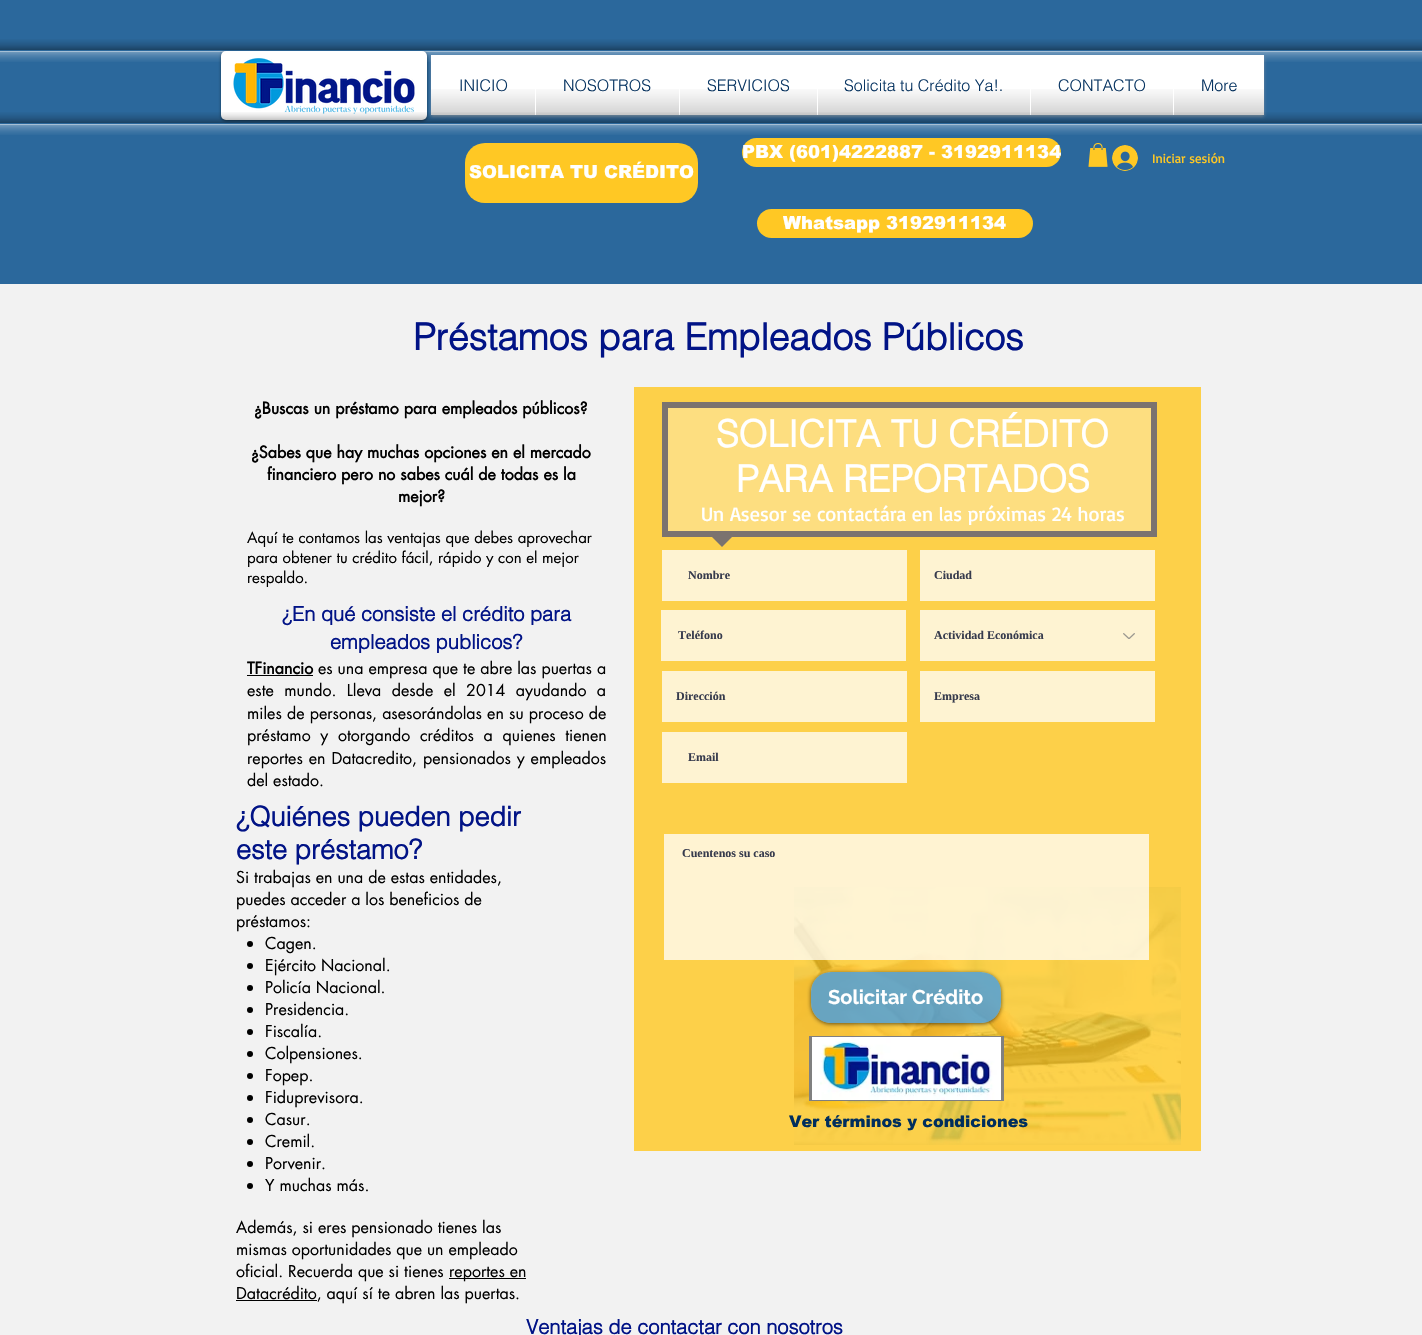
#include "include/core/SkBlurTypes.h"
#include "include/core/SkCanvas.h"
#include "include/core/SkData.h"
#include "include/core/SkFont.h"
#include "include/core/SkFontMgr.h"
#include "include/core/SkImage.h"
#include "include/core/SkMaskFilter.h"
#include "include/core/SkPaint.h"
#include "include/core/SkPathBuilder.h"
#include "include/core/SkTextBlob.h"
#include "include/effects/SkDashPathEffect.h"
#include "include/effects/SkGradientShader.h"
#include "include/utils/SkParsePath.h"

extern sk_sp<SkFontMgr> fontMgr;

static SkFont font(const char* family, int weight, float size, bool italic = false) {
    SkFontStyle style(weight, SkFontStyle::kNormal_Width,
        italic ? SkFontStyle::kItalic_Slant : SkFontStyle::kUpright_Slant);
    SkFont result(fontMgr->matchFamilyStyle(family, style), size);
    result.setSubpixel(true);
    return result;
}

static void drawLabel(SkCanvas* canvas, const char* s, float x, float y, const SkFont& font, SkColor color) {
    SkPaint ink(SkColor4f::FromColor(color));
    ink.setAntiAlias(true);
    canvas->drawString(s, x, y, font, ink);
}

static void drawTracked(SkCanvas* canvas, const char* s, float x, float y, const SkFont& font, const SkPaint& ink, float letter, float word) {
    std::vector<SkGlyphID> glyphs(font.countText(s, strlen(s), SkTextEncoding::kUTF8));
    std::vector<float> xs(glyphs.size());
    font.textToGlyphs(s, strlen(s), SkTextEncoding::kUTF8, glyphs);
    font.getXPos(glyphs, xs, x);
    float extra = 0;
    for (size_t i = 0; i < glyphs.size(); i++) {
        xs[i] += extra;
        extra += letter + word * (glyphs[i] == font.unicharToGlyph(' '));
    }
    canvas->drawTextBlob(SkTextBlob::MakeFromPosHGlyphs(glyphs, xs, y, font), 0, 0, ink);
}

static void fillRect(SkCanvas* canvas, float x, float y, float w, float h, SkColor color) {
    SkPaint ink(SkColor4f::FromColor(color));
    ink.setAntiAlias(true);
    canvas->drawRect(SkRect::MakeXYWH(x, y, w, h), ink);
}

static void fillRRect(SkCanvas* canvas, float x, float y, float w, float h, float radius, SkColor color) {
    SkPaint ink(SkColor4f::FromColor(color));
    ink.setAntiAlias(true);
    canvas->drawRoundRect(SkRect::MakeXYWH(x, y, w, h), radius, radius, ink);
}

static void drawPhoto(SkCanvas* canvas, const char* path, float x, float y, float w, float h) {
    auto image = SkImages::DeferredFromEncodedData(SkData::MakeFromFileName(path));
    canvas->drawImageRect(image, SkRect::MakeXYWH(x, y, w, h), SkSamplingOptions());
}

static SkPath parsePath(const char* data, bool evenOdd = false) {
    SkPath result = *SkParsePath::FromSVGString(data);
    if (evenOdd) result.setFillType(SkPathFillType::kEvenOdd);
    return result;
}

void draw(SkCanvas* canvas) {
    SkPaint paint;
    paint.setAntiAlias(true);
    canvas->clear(0xFFF2F2F2);
    fillRect(canvas, 0, 0, 1422, 284, 0xFF2B689C);
    paint.setColor(0x99A29E9E);
    paint.setMaskFilter(SkMaskFilter::MakeBlur(kNormal_SkBlurStyle, 1.5f));
    canvas->drawRect(SkRect::MakeXYWH(431, 57, 833, 60), paint);
    paint.setMaskFilter(nullptr);
    fillRect(canvas, 431, 55, 833, 60, 0xFFFFFFFF);
    drawPhoto(canvas, "assets/img1.png", 0, 39, 1422, 23);
    SkFont font1 = font("helvetica", 300, 16);
    drawLabel(canvas, "INICIO", 459, 91, font1, 0xFF002E5D);
    drawPhoto(canvas, "assets/img4.png", 431, 89, 104, 26);
    paint.setColor(0x80000000);
    paint.setMaskFilter(SkMaskFilter::MakeBlur(kNormal_SkBlurStyle, 1.5f));
    canvas->drawRoundRect(SkRect::MakeXYWH(221, 52, 206, 69), 5, 5, paint);
    paint.setMaskFilter(nullptr);
    fillRRect(canvas, 221, 51, 206, 69, 5, 0xFFFFFFFF);
    drawPhoto(canvas, "assets/img2.png", 233, 58, 182, 56);
    drawPhoto(canvas, "assets/img3.png", 460, 79, 47, 9);
    drawLabel(canvas, "NOSOTROS", 563, 91, font1, 0xFF002E5D);
    drawPhoto(canvas, "assets/img5.png", 565, 79, 86, 9);
    drawPhoto(canvas, "assets/img6.png", 536, 89, 143, 26);
    drawLabel(canvas, "SERVICIOS", 707, 91, font1, 0xFF002E5D);
    drawPhoto(canvas, "assets/img7.png", 708, 79, 81, 9);
    drawPhoto(canvas, "assets/img8.png", 680, 89, 137, 26);
    drawLabel(canvas, "Solicita tu Crédito Ya!.", 844, 91, font1, 0xFF002E5D);
    drawPhoto(canvas, "assets/img9.png", 845, 79, 152, 9);
    drawPhoto(canvas, "assets/img10.png", 818, 89, 212, 26);
    drawLabel(canvas, "CONTACTO", 1058, 91, font1, 0xFF002E5D);
    drawPhoto(canvas, "assets/img11.png", 1059, 79, 86, 9);
    drawPhoto(canvas, "assets/img12.png", 1031, 89, 142, 26);
    drawLabel(canvas, "More", 1201, 91, font1, 0xFF002E5D);
    drawPhoto(canvas, "assets/img13.png", 1202, 79, 34, 9);
    drawPhoto(canvas, "assets/img14.png", 1174, 89, 90, 26);
    drawPhoto(canvas, "assets/img15.png", 0, 112, 1422, 23);
    fillRRect(canvas, 742, 138, 319, 29, 14.5f, 0xFFFFC824);
    SkFont font2 = font("arial", 900, 18);
    drawLabel(canvas, "PBX (601)4222887 - 3192911134", 742, 158, font2, 0xFFFFFFFF);
    drawPhoto(canvas, "assets/img16.png", 1088, 143, 20, 24);
    drawPhoto(canvas, "assets/img17.png", 1112, 145, 26, 26);
    SkFont font3 = font("Basic", 400, 13);
    drawLabel(canvas, "Iniciar sesión", 1152, 163, font3, 0xFFFFC824);
    fillRRect(canvas, 465, 143, 233, 60, 20, 0xFFFFC824);
    drawLabel(canvas, "SOLICITA TU CRÉDITO", 469, 178, font2, 0xFFFFFFFF);
    fillRRect(canvas, 757, 209, 276, 29, 14.5f, 0xFFFFC824);
    drawLabel(canvas, "Whatsapp 3192911134", 783, 229, font2, 0xFFFFFFFF);
    SkFont font4 = font("helvetica", 700, 37);
    drawLabel(canvas, "Préstamos para Empleados Públicos", 413, 350, font4, 0xFF011386);
    SkFont font5 = font("futura", 700, 16);
    drawLabel(canvas, "¿Buscas un préstamo para empleados públicos?", 254, 414, font5, 0xFF000000);
    drawLabel(canvas, "¿Sabes que hay muchas opciones en el mercado", 251, 458, font5, 0xFF000000);
    drawLabel(canvas, "financiero pero no sabes cuál de todas es la", 267, 480, font5, 0xFF000000);
    drawLabel(canvas, "mejor?", 398, 502, font5, 0xFF000000);
    SkFont font6 = font("futura", 400, 15);
    drawLabel(canvas, "Aquí te contamos las ventajas que debes aprovechar", 247, 543, font6, 0xFF000000);
    drawLabel(canvas, "para obtener tu crédito fácil, rápido y con el mejor", 247, 563, font6, 0xFF000000);
    drawLabel(canvas, "respaldo.", 247, 583, font6, 0xFF000000);
    fillRect(canvas, 634, 387, 567, 764, 0xFFFDD049);
    paint.setColor(0xFFFDDE80);
    canvas->drawRect(SkRect::MakeXYWH(665, 405, 489, 129), paint);
    paint.setStroke(true);
    paint.setStrokeWidth(6);
    paint.setColor(0xFF7B736F);
    canvas->drawRect(SkRect::MakeXYWH(665, 405, 489, 129), paint);
    drawLabel(canvas, "SOLICITA TU CRÉDITO", 716, 447, font4, 0xFFFFFFFF);
    drawLabel(canvas, "PARA REPORTADOS", 736, 492, font4, 0xFFFFFFFF);
    SkFont font7 = font("Basic", 400, 20);
    drawLabel(canvas, "Un Asesor se contactára en las próximas 24 horas", 701, 521, font7, 0xFFFFFFFF);
    paint.setStroke(false);
    canvas->drawPath(parsePath("M712 537H732L722 547Z"), paint);
    fillRect(canvas, 662, 550, 245, 51, 0xFFFEF3D2);
    SkFont font8 = font("Liberation Serif", 700, 12);
    drawLabel(canvas, "Nombre", 688, 579, font8, 0xFF373B4D);
    fillRect(canvas, 920, 550, 235, 51, 0xFFFEF3D2);
    drawLabel(canvas, "Ciudad", 934, 579, font8, 0xFF373B4D);
    fillRect(canvas, 661, 610, 245, 51, 0xFFFEF3D2);
    drawLabel(canvas, "Teléfono", 678, 639, font8, 0xFF373B4D);
    fillRect(canvas, 920, 610, 235, 51, 0xFFFEF3D2);
    drawLabel(canvas, "Actividad Económica", 934, 639, font8, 0xFF373B4D);
    drawPhoto(canvas, "assets/img18.png", 1123, 633, 12, 6);
    fillRect(canvas, 662, 671, 245, 51, 0xFFFEF3D2);
    drawLabel(canvas, "Dirección", 676, 700, font8, 0xFF373B4D);
    fillRect(canvas, 920, 671, 235, 51, 0xFFFEF3D2);
    drawLabel(canvas, "Empresa", 934, 700, font8, 0xFF373B4D);
    fillRect(canvas, 662, 732, 245, 51, 0xFFFEF3D2);
    drawLabel(canvas, "Email", 688, 761, font8, 0xFF373B4D);
    drawPhoto(canvas, "assets/img20.png", 794, 887, 387, 258);
    fillRect(canvas, 664, 834, 485, 126, 0xBFFFFFFF);
    drawLabel(canvas, "Cuentenos su caso", 682, 857, font8, 0xFF373B4D);
    canvas->save();
    canvas->clipPath(parsePath("M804 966H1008V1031H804ZM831 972H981C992 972 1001 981 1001 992V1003C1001 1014 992 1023 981 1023H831C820 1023 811 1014 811 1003V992C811 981 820 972 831 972Z", true), true);
    paint.setColor(0x99000000);
    paint.setMaskFilter(SkMaskFilter::MakeBlur(kNormal_SkBlurStyle, 2));
    canvas->drawRoundRect(SkRect::MakeXYWH(811, 973, 190, 51), 20, 20, paint);
    paint.setMaskFilter(nullptr);
    canvas->restore();
    fillRRect(canvas, 811, 972, 190, 51, 20, 0xC43D9BE9);
    SkFont font9 = font("Raleway", 700, 20);
    drawLabel(canvas, "Solicitar Crédito", 828, 1004, font9, 0xFFFFFFFF);
    fillRect(canvas, 809, 1036, 195, 65, 0xFF808080);
    drawPhoto(canvas, "assets/img19.png", 812, 1037, 189, 63);
    SkFont font10 = font("arial", 900, 16);
    drawLabel(canvas, "Ver términos y condiciones", 789, 1127, font10, 0xFF002E5D);
    SkFont font11 = font("helvetica", 700, 20);
    drawLabel(canvas, "¿En qué consiste el crédito para", 282, 621, font11, 0xFF011386);
    drawLabel(canvas, "empleados publicos?", 330, 649, font11, 0xFF011386);
    drawLabel(canvas, "TFinancio", 247, 674, font5, 0xFF000000);
    fillRect(canvas, 247, 675, 66, 1, 0xFF000000);
    SkFont font12 = font("futura", 400, 16);
    drawLabel(canvas, "es una empresa que te abre las puertas a", 318, 674, font12, 0xFF000000);
    paint.setColor(0xFF000000);
    drawTracked(canvas, "este mundo. Lleva desde el 2014 ayudando a", 247, 696, font12, paint, 0, 5.5f);
    drawTracked(canvas, "miles de personas, asesorándolas en su proceso de", 247, 719, font12, paint, 0, 0.25f);
    drawTracked(canvas, "préstamo y otorgando créditos a quienes tienen", 247, 741, font12, paint, 0, 4.75f);
    drawTracked(canvas, "reportes en Datacredito, pensionados y empleados", 247, 764, font12, paint, 0, 1);
    drawLabel(canvas, "del estado.", 247, 786, font12, 0xFF000000);
    SkFont font13 = font("helvetica", 700, 27);
    drawLabel(canvas, "¿Quiénes pueden pedir", 236, 826, font13, 0xFF011386);
    drawLabel(canvas, "este préstamo?", 236, 859, font13, 0xFF011386);
    drawLabel(canvas, "Si trabajas en una de estas entidades,", 236, 883, font12, 0xFF000000);
    drawLabel(canvas, "puedes acceder a los beneficios de", 236, 905, font12, 0xFF000000);
    drawLabel(canvas, "préstamos:", 236, 927, font12, 0xFF000000);
    canvas->drawCircle(250, 944, 3, paint);
    drawLabel(canvas, "Cagen.", 265, 949, font12, 0xFF000000);
    canvas->drawCircle(250, 966, 3, paint);
    drawLabel(canvas, "Ejército Nacional.", 265, 971, font12, 0xFF000000);
    canvas->drawCircle(250, 988, 3, paint);
    drawLabel(canvas, "Policía Nacional.", 265, 993, font12, 0xFF000000);
    canvas->drawCircle(250, 1010, 3, paint);
    drawLabel(canvas, "Presidencia.", 265, 1015, font12, 0xFF000000);
    canvas->drawCircle(250, 1032, 3, paint);
    drawLabel(canvas, "Fiscalía.", 265, 1037, font12, 0xFF000000);
    canvas->drawCircle(250, 1054, 3, paint);
    drawLabel(canvas, "Colpensiones.", 265, 1059, font12, 0xFF000000);
    canvas->drawCircle(250, 1076, 3, paint);
    drawLabel(canvas, "Fopep.", 265, 1081, font12, 0xFF000000);
    canvas->drawCircle(250, 1098, 3, paint);
    drawLabel(canvas, "Fiduprevisora.", 265, 1103, font12, 0xFF000000);
    canvas->drawCircle(250, 1120, 3, paint);
    drawLabel(canvas, "Casur.", 265, 1125, font12, 0xFF000000);
    canvas->drawCircle(250, 1142, 3, paint);
    drawLabel(canvas, "Cremil.", 265, 1147, font12, 0xFF000000);
    canvas->drawCircle(250, 1164, 3, paint);
    drawLabel(canvas, "Porvenir.", 265, 1169, font12, 0xFF000000);
    canvas->drawCircle(250, 1186, 3, paint);
    drawLabel(canvas, "Y muchas más.", 265, 1191, font12, 0xFF000000);
    drawLabel(canvas, "Además, si eres pensionado tienes las", 236, 1233, font12, 0xFF000000);
    drawLabel(canvas, "mismas oportunidades que un empleado", 236, 1255, font12, 0xFF000000);
    drawLabel(canvas, "oficial. Recuerda que si tienes", 236, 1277, font12, 0xFF000000);
    fillRect(canvas, 449, 1278, 77, 1, 0xFF000000);
    drawLabel(canvas, "reportes en", 449, 1277, font12, 0xFF000000);
    fillRect(canvas, 236, 1300, 81, 1, 0xFF000000);
    drawLabel(canvas, "Datacrédito, aquí sí te abren las puertas.", 236, 1299, font12, 0xFF000000);
    drawLabel(canvas, "Ventajas de contactar con nosotros", 526, 1334, font11, 0xFF011386);
}
